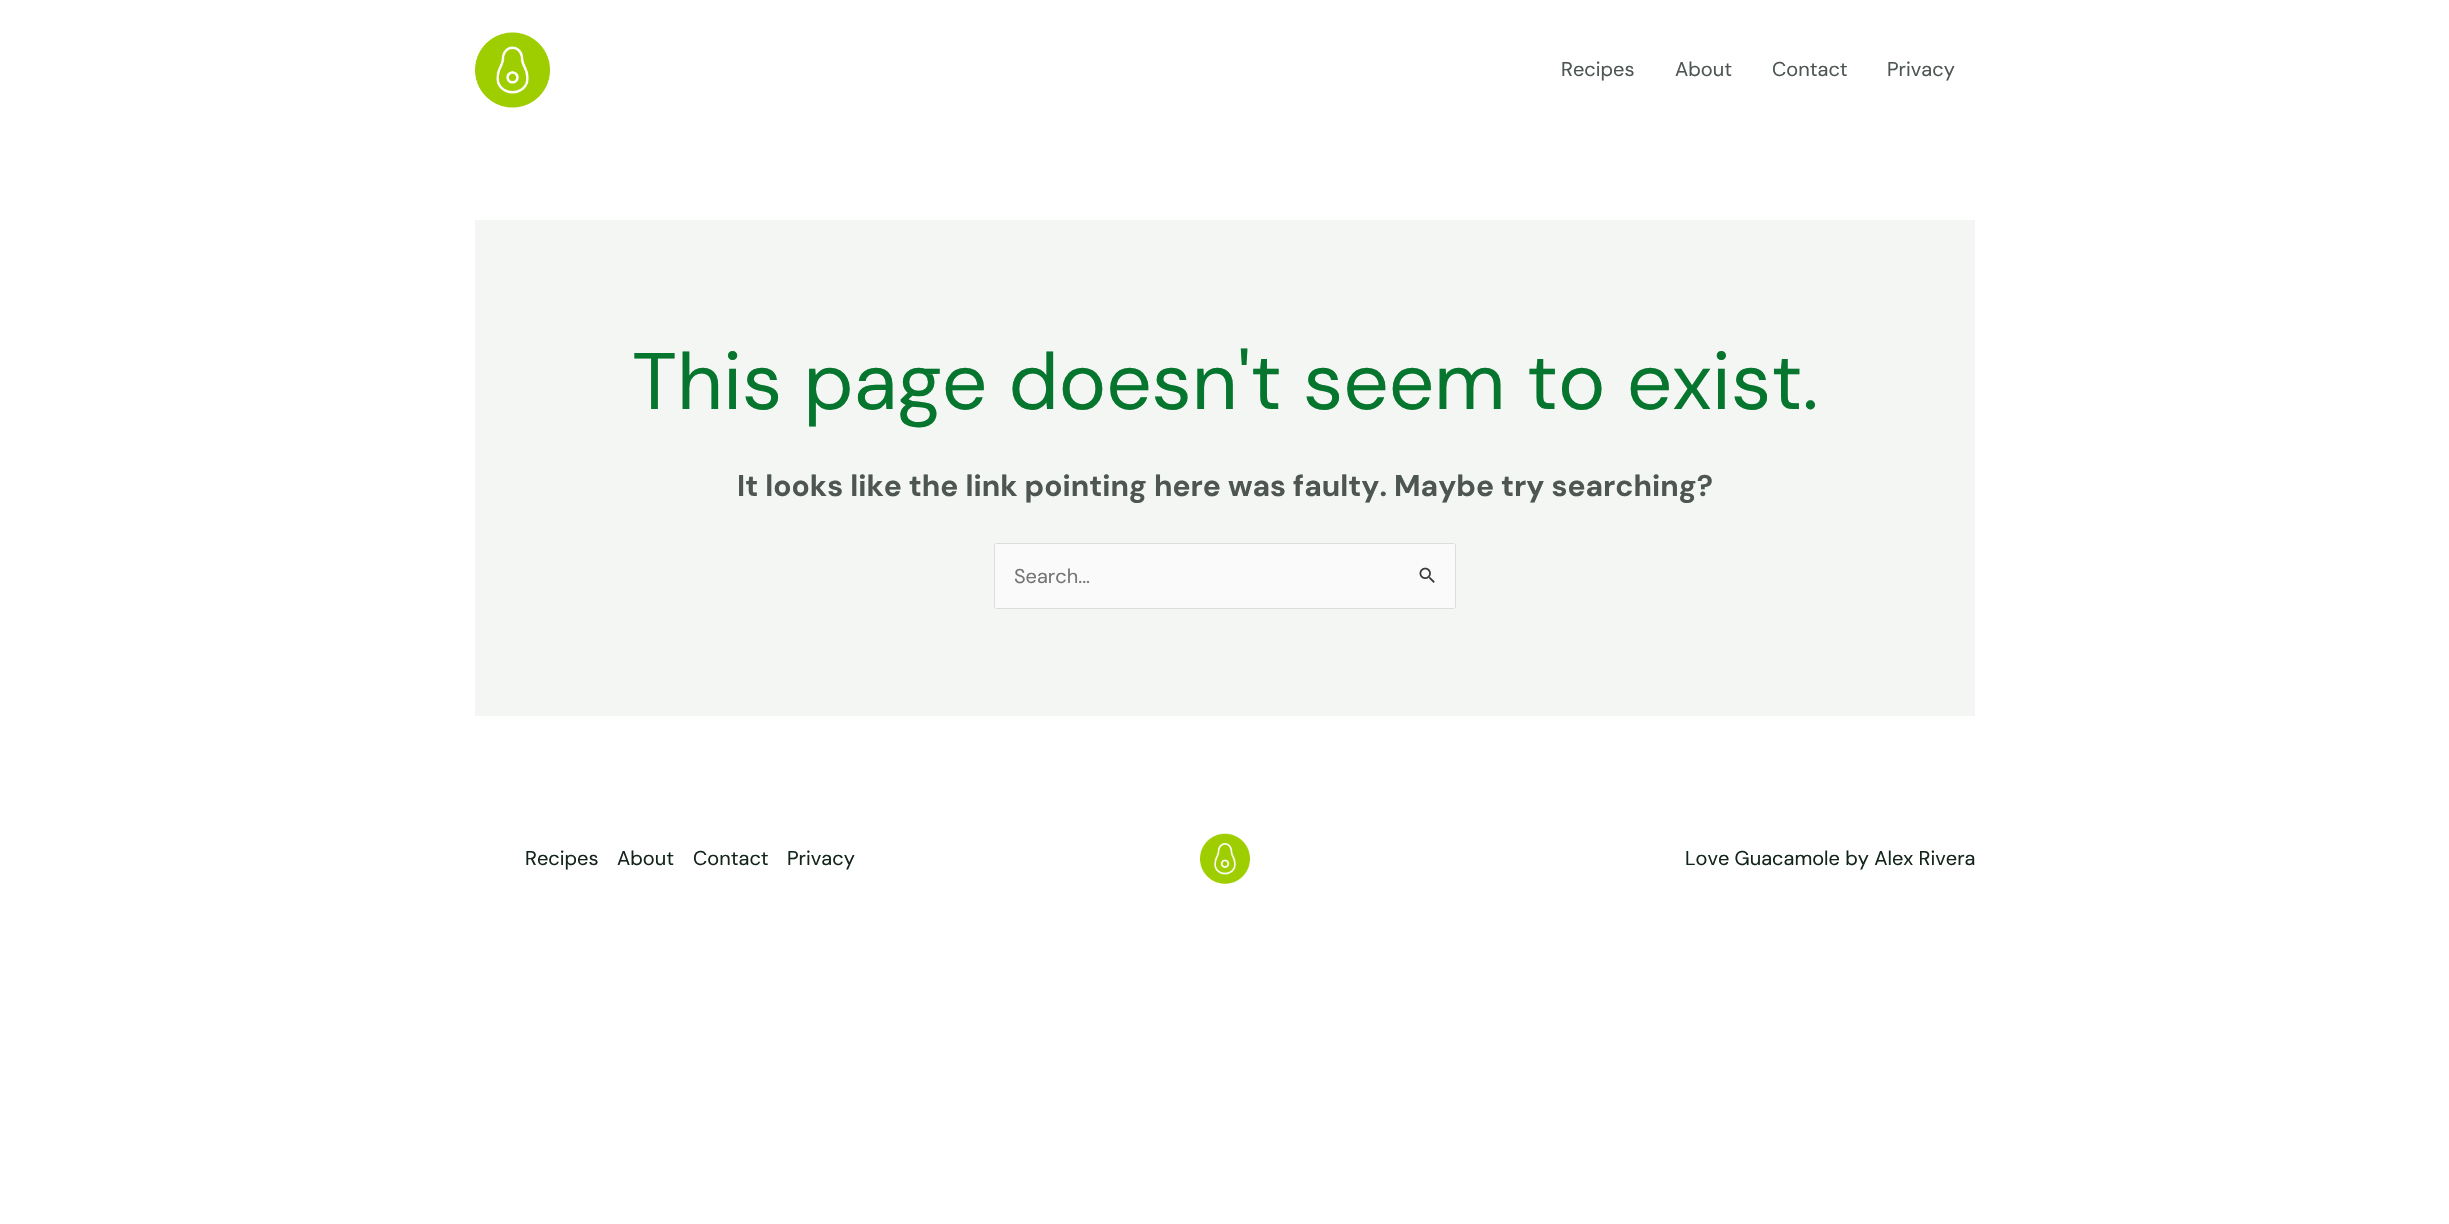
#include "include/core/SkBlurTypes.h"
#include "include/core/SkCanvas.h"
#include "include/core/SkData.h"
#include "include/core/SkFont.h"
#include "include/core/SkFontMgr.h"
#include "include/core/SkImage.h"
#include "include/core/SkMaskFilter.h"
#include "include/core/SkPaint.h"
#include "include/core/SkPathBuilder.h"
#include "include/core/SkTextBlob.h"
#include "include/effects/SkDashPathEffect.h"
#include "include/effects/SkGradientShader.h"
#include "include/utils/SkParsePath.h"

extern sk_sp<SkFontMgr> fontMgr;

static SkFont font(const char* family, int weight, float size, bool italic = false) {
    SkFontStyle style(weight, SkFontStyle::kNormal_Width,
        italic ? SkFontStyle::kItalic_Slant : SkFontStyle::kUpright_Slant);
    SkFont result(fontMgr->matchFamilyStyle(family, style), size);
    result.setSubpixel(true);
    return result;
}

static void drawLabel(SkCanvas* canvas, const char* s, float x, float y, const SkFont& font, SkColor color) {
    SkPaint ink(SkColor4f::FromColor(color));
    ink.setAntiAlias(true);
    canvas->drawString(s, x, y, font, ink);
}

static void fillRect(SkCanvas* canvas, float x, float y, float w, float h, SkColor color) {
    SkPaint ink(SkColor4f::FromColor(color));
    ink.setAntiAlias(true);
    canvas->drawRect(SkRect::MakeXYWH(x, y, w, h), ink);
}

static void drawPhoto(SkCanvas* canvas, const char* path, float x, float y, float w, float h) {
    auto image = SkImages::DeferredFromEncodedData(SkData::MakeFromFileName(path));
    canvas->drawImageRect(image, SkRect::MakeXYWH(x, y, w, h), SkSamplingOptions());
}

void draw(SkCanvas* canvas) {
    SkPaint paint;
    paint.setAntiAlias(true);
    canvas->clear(0xFFFFFFFF);
    drawPhoto(canvas, "assets/img1.png", 475, 32, 75, 76);
    SkFont font1 = font("DM Sans", 400, 20);
    drawLabel(canvas, "Recipes", 1561, 76, font1, 0xFF4E5652);
    drawLabel(canvas, "About", 1675, 76, font1, 0xFF4E5652);
    drawLabel(canvas, "Contact", 1772, 76, font1, 0xFF4E5652);
    drawLabel(canvas, "Privacy", 1887, 76, font1, 0xFF4E5652);
    fillRect(canvas, 475, 220, 1500, 496, 0xFFF4F6F4);
    SkFont font2 = font("DM Sans", 400, 80);
    drawLabel(canvas, "This page doesn't seem to exist.", 632, 409, font2, 0xFF06752E);
    SkFont font3 = font("DM Sans", 700, 30);
    drawLabel(canvas, "It looks like the link pointing here was faulty. Maybe try searching?", 737, 496, font3, 0xFF4E5652);
    paint.setColor(0xFFFAFAFA);
    canvas->drawRoundRect(SkRect::MakeXYWH(994.5f, 543.5f, 461, 65), 2, 2, paint);
    paint.setStroke(true);
    paint.setStrokeWidth(1);
    paint.setColor(0xFFDDDDDD);
    canvas->drawRoundRect(SkRect::MakeXYWH(994.5f, 543.5f, 461, 65), 2, 2, paint);
    drawLabel(canvas, "Search...", 1014, 583, font1, 0xFF757575);
    drawPhoto(canvas, "assets/img2.png", 1419, 567, 16, 16);
    drawLabel(canvas, "Recipes", 525, 865, font1, 0xFF14261C);
    drawLabel(canvas, "About", 617, 865, font1, 0xFF14261C);
    drawLabel(canvas, "Contact", 693, 865, font1, 0xFF14261C);
    drawLabel(canvas, "Privacy", 787, 865, font1, 0xFF14261C);
    drawPhoto(canvas, "assets/img3.png", 1200, 833, 50, 51);
    drawLabel(canvas, "Love Guacamole by Alex Rivera", 1685, 865, font1, 0xFF14261C);
}
